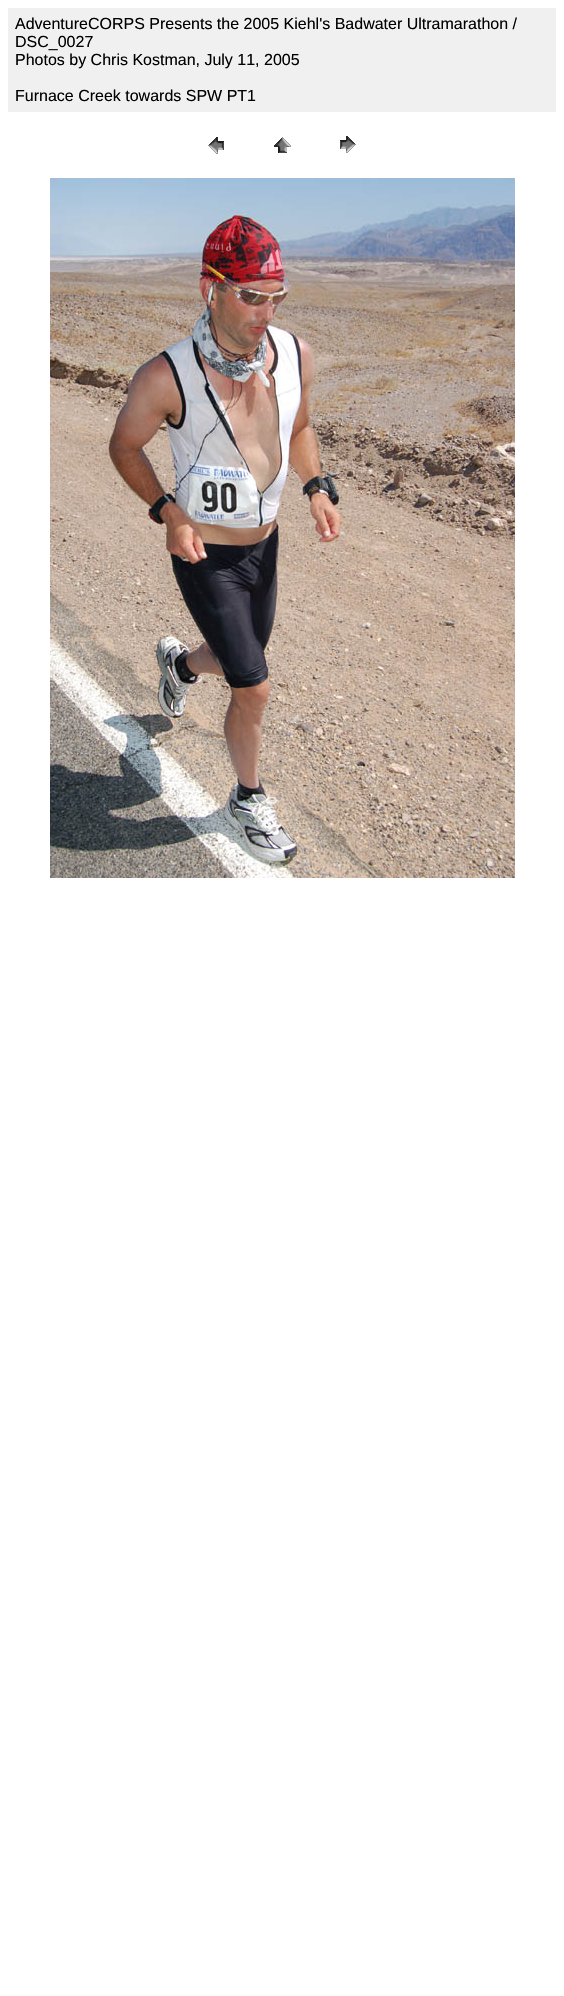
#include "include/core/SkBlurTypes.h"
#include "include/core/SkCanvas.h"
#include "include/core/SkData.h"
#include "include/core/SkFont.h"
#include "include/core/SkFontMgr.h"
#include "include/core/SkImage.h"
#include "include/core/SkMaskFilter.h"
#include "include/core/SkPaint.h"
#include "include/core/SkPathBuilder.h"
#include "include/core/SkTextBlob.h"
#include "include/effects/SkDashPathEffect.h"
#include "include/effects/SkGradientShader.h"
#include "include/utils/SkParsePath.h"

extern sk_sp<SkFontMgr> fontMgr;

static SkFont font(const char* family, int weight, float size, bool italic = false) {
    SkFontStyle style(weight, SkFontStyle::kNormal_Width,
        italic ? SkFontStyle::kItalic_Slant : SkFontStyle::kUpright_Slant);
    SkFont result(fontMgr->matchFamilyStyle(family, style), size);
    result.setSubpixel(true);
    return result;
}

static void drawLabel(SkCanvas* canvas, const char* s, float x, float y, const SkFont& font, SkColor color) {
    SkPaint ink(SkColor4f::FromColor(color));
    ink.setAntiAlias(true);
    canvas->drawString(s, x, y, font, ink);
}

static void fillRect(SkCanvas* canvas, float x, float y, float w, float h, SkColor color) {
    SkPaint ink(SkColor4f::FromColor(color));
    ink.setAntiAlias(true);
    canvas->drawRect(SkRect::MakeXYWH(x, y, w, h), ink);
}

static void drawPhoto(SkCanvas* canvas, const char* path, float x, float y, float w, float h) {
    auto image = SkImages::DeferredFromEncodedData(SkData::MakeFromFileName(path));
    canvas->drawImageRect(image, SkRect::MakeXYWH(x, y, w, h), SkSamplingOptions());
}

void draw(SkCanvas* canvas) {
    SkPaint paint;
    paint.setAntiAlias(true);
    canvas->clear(0xFFFFFFFF);
    fillRect(canvas, 8, 8, 548, 104, 0xFFF0F0F0);
    SkFont font1 = font("Liberation Sans", 400, 16);
    drawLabel(canvas, "AdventureCORPS Presents the 2005 Kiehl's Badwater Ultramarathon /", 15, 29, font1, 0xFF000000);
    drawLabel(canvas, "DSC_0027", 15, 47, font1, 0xFF000000);
    drawLabel(canvas, "Photos by Chris Kostman, July 11, 2005", 15, 65, font1, 0xFF000000);
    drawLabel(canvas, "Furnace Creek towards SPW PT1", 15, 101, font1, 0xFF000000);
    drawPhoto(canvas, "assets/img1.png", 208, 137, 16, 17);
    drawPhoto(canvas, "assets/img2.png", 274, 137, 17, 16);
    drawPhoto(canvas, "assets/img3.png", 340, 136, 16, 17);
    drawPhoto(canvas, "assets/img4.png", 50, 178, 465, 700);
}
